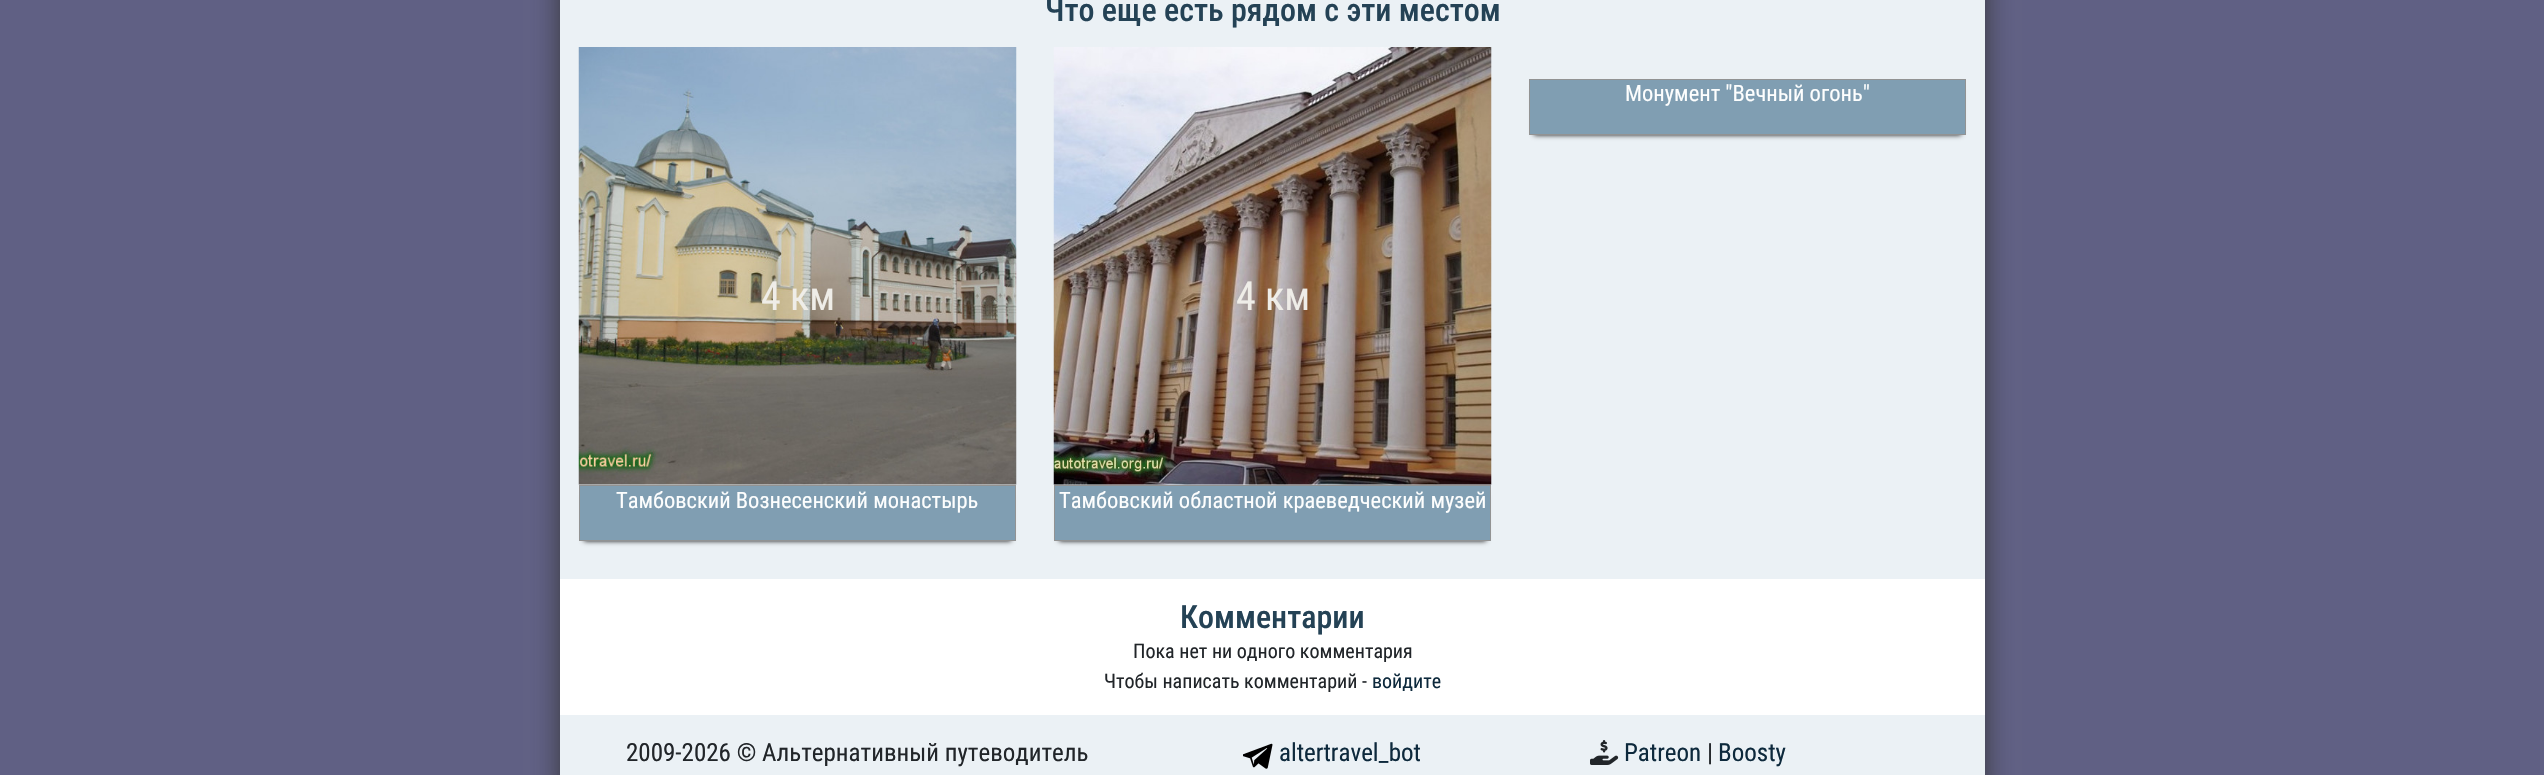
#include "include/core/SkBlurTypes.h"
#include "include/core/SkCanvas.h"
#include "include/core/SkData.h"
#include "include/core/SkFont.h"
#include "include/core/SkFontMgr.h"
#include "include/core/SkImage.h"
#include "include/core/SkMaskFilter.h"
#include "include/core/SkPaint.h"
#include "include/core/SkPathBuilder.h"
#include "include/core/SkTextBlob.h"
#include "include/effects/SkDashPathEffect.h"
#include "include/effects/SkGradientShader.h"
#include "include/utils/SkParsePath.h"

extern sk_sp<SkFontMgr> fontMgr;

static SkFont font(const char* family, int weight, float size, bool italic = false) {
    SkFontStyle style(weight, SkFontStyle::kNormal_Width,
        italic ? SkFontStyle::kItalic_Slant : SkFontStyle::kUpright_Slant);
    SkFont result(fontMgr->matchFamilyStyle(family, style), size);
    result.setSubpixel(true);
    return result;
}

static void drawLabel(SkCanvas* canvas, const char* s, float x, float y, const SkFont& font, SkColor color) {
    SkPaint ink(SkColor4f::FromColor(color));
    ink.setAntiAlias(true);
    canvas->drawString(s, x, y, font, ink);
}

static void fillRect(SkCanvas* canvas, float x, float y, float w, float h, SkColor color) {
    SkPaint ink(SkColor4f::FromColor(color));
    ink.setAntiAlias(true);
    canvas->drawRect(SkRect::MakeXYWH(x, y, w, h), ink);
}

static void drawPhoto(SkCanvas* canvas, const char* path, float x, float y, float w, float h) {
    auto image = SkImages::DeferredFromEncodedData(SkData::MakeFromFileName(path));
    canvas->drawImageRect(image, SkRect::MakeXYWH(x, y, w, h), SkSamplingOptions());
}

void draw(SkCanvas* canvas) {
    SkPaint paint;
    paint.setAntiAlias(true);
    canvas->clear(0xFF606084);
    paint.setColor(0xE6323232);
    paint.setMaskFilter(SkMaskFilter::MakeBlur(kNormal_SkBlurStyle, 12.5f));
    canvas->drawRect(SkRect::MakeXYWH(560, -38, 1425, 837), paint);
    paint.setMaskFilter(nullptr);
    fillRect(canvas, 560, 0, 1425, 579, 0xFFEBF1F5);
    SkFont font1 = font("Roboto Condensed", 500, 32);
    drawLabel(canvas, "Что еще есть рядом с эти местом", 1045, 21, font1, 0xFF244255);
    paint.setColor(0xFF181819);
    paint.setMaskFilter(SkMaskFilter::MakeBlur(kNormal_SkBlurStyle, 2.5f));
    canvas->drawRect(SkRect::MakeXYWH(1534, 89, 427, 46), paint);
    paint.setMaskFilter(nullptr);
    paint.setColor(0xFF809EB2);
    canvas->drawRect(SkRect::MakeXYWH(1529.5f, 79.5f, 436, 55), paint);
    paint.setStroke(true);
    paint.setStrokeWidth(1);
    paint.setColor(0xFF929393);
    canvas->drawRect(SkRect::MakeXYWH(1529.5f, 79.5f, 436, 55), paint);
    SkFont font2 = font("Roboto Condensed", 400, 22.5f);
    drawLabel(canvas, "Монумент \"Вечный огонь\"", 1625, 101, font2, 0xFFFDFEFE);
    drawPhoto(canvas, "assets/img1.png", 578, 47, 439, 438);
    SkFont font3 = font("Roboto Condensed", 400, 40);
    drawLabel(canvas, "4 км", 761, 310, font3, 0xFFEFEDE8);
    paint.setStroke(false);
    paint.setColor(0xFF181819);
    paint.setMaskFilter(SkMaskFilter::MakeBlur(kNormal_SkBlurStyle, 2.5f));
    canvas->drawRect(SkRect::MakeXYWH(584, 495, 427, 46), paint);
    paint.setMaskFilter(nullptr);
    paint.setColor(0xFF809EB2);
    canvas->drawRect(SkRect::MakeXYWH(579.5f, 485.5f, 436, 55), paint);
    paint.setStroke(true);
    paint.setColor(0xFF929393);
    canvas->drawRect(SkRect::MakeXYWH(579.5f, 485.5f, 436, 55), paint);
    drawLabel(canvas, "Тамбовский Вознесенский монастырь", 616, 508, font2, 0xFFFDFEFE);
    drawPhoto(canvas, "assets/img2.png", 1053, 47, 439, 438);
    drawLabel(canvas, "4 км", 1236, 310, font3, 0xFFEFEDE8);
    paint.setStroke(false);
    paint.setColor(0xFF181819);
    paint.setMaskFilter(SkMaskFilter::MakeBlur(kNormal_SkBlurStyle, 2.5f));
    canvas->drawRect(SkRect::MakeXYWH(1059, 495, 427, 46), paint);
    paint.setMaskFilter(nullptr);
    paint.setColor(0xFF809EB2);
    canvas->drawRect(SkRect::MakeXYWH(1054.5f, 485.5f, 436, 55), paint);
    paint.setStroke(true);
    paint.setColor(0xFF929393);
    canvas->drawRect(SkRect::MakeXYWH(1054.5f, 485.5f, 436, 55), paint);
    drawLabel(canvas, "Тамбовский областной краеведческий музей", 1059, 508, font2, 0xFFFDFEFE);
    fillRect(canvas, 560, 579, 1425, 136, 0xFFFFFFFF);
    drawLabel(canvas, "Комментарии", 1180, 628, font1, 0xFF244255);
    SkFont font4 = font("Roboto Condensed", 400, 20);
    drawLabel(canvas, "Пока нет ни одного комментария", 1133, 658, font4, 0xFF212529);
    drawLabel(canvas, "Чтобы написать комментарий -", 1104, 688, font4, 0xFF212529);
    drawLabel(canvas, "войдите", 1372, 688, font4, 0xFF0D293C);
    fillRect(canvas, 560, 715, 1425, 60, 0xFFEBF1F5);
    SkFont font5 = font("Roboto Condensed", 400, 25);
    drawLabel(canvas, "2009-2026 © Альтернативный путеводитель", 626, 761, font5, 0xFF212529);
    drawPhoto(canvas, "assets/img3.png", 1243, 743, 30, 26);
    drawLabel(canvas, "altertravel_bot", 1279, 761, font5, 0xFF0D293C);
    drawPhoto(canvas, "assets/img4.png", 1590, 740, 29, 25);
    drawLabel(canvas, "Patreon", 1624, 761, font5, 0xFF0D293C);
    drawLabel(canvas, "|", 1707, 761, font5, 0xFF212529);
    drawLabel(canvas, "Boosty", 1718, 761, font5, 0xFF0D293C);
}
